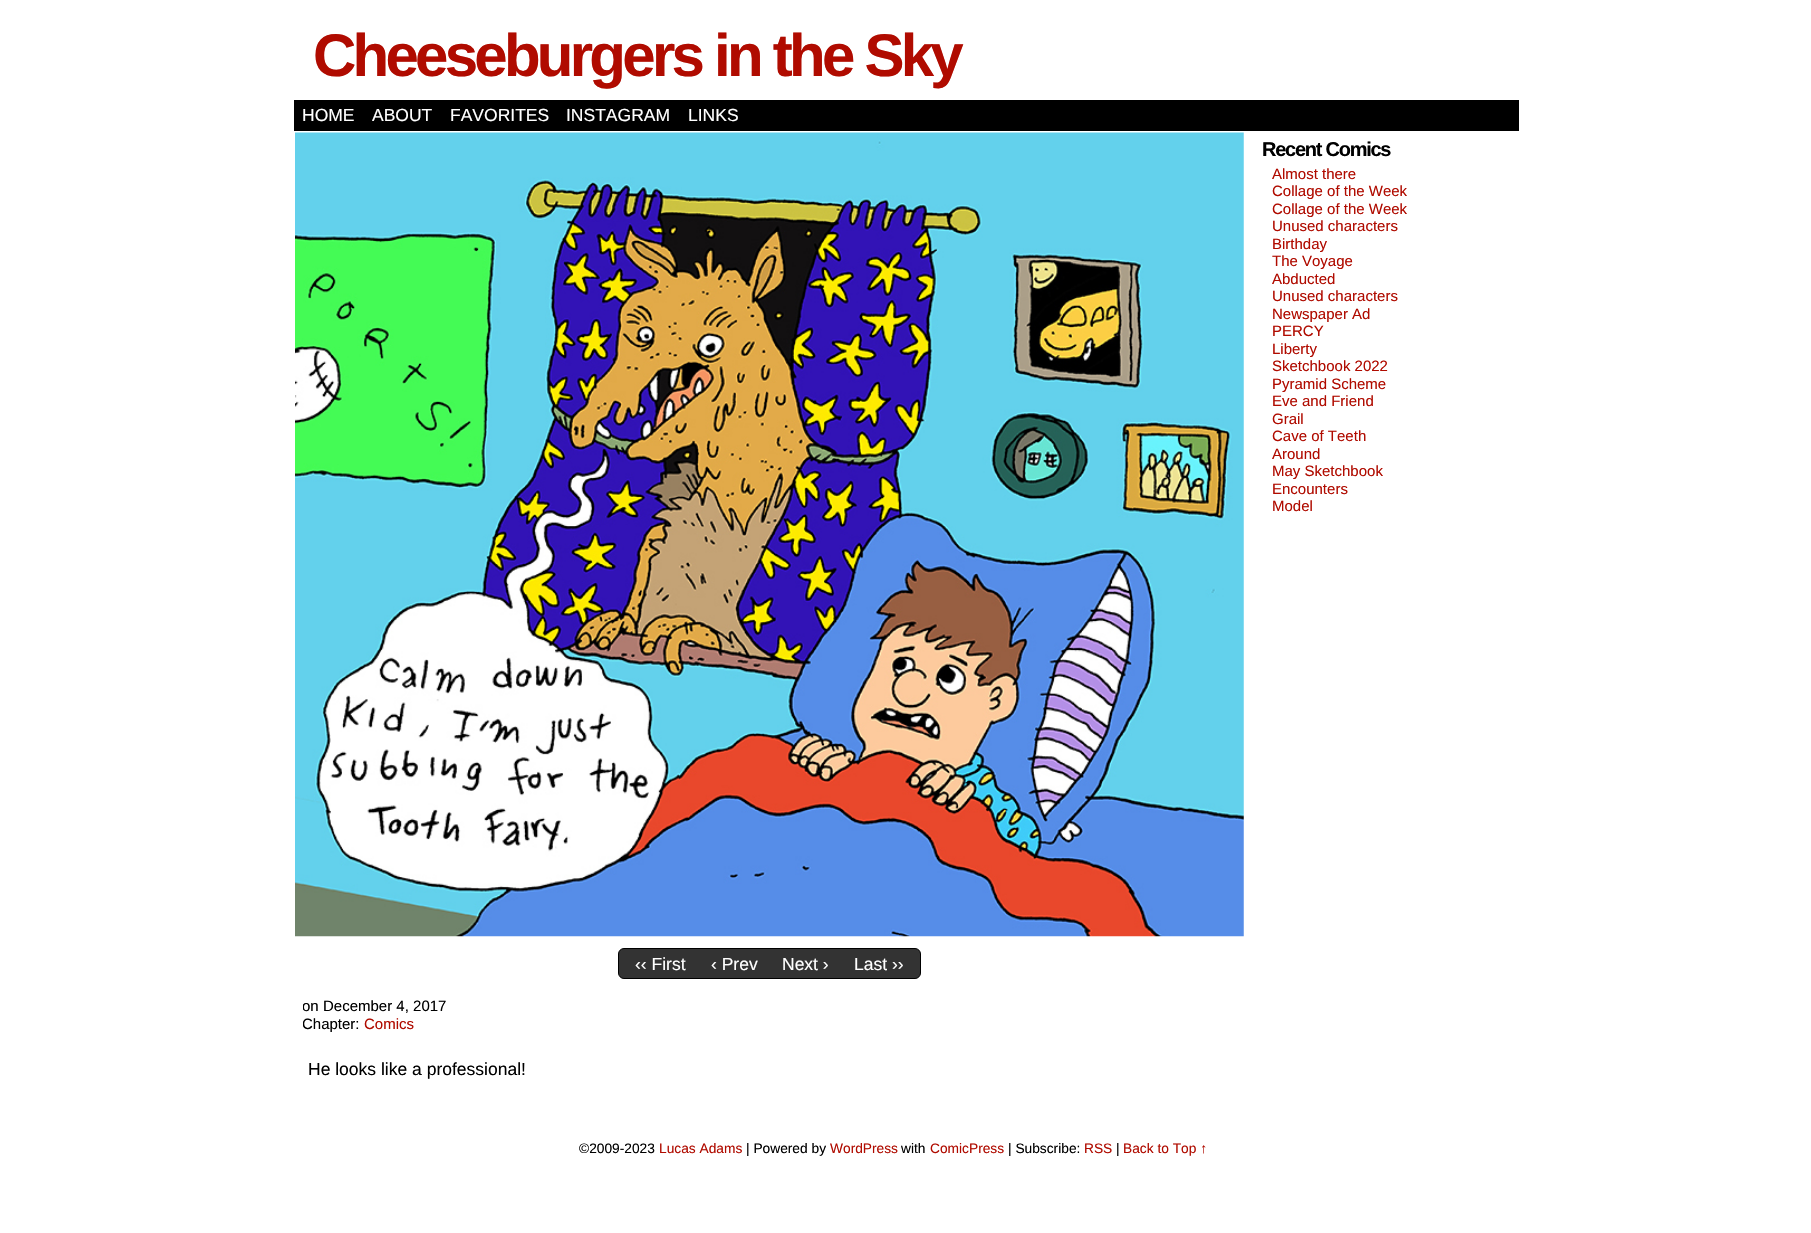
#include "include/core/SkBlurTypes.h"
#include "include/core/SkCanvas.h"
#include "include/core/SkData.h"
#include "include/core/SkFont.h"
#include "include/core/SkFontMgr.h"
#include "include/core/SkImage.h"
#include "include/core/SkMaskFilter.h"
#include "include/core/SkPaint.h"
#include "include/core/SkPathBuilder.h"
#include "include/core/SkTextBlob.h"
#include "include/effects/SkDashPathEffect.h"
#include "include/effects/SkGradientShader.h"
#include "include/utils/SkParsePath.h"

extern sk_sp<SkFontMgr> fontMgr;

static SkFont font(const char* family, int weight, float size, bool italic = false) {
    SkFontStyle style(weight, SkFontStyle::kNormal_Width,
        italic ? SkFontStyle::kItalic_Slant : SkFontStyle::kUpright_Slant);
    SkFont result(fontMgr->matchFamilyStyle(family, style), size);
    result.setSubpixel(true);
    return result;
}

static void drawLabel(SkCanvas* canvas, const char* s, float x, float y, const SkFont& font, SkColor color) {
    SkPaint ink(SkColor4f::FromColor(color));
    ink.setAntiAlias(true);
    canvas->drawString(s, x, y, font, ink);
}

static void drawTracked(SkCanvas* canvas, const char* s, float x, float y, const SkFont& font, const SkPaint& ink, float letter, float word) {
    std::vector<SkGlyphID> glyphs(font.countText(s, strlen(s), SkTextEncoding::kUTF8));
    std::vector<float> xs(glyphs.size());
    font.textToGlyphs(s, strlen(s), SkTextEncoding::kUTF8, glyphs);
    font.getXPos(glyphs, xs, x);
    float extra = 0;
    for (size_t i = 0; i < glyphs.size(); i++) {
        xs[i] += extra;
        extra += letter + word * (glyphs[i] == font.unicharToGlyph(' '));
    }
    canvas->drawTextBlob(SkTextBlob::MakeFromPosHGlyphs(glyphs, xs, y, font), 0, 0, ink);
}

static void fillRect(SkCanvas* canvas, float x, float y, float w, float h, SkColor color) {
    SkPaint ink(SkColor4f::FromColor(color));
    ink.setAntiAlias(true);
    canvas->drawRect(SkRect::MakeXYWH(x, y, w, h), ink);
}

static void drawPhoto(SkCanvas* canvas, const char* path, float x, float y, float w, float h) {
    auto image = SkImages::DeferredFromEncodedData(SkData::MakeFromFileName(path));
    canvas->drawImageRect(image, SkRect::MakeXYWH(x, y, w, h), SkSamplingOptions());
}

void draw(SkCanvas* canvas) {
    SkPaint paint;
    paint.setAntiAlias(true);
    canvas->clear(0xFFFFFFFF);
    SkFont font1 = font("Liberation Sans", 700, 60);
    paint.setColor(0xFFB00B00);
    drawTracked(canvas, "Cheeseburgers in the Sky", 313, 76, font1, paint, -3.75f, 0);
    fillRect(canvas, 294, 100, 1225, 31, 0xFF000000);
    SkFont font2 = font("Liberation Sans", 400, 17.5f);
    drawLabel(canvas, "HOME", 302, 121, font2, 0xFFFFFFFF);
    drawLabel(canvas, "ABOUT", 372, 121, font2, 0xFFFFFFFF);
    drawLabel(canvas, "FAVORITES", 450, 121, font2, 0xFFFFFFFF);
    drawLabel(canvas, "INSTAGRAM", 566, 121, font2, 0xFFFFFFFF);
    drawLabel(canvas, "LINKS", 688, 121, font2, 0xFFFFFFFF);
    SkFont font3 = font("Liberation Sans", 700, 20);
    paint.setColor(0xFF000000);
    drawTracked(canvas, "Recent Comics", 1262, 156, font3, paint, -1.25f, 0);
    SkFont font4 = font("Liberation Sans", 400, 15);
    drawLabel(canvas, "Almost there", 1272, 179, font4, 0xFFB00B00);
    drawLabel(canvas, "Collage of the Week", 1272, 196, font4, 0xFFB00B00);
    drawLabel(canvas, "Collage of the Week", 1272, 214, font4, 0xFFB00B00);
    drawLabel(canvas, "Unused characters", 1272, 231, font4, 0xFFB00B00);
    drawLabel(canvas, "Birthday", 1272, 249, font4, 0xFFB00B00);
    drawLabel(canvas, "The Voyage", 1272, 266, font4, 0xFFB00B00);
    drawLabel(canvas, "Abducted", 1272, 284, font4, 0xFFB00B00);
    drawLabel(canvas, "Unused characters", 1272, 301, font4, 0xFFB00B00);
    drawLabel(canvas, "Newspaper Ad", 1272, 319, font4, 0xFFB00B00);
    drawLabel(canvas, "PERCY", 1272, 336, font4, 0xFFB00B00);
    drawLabel(canvas, "Liberty", 1272, 354, font4, 0xFFB00B00);
    drawLabel(canvas, "Sketchbook 2022", 1272, 371, font4, 0xFFB00B00);
    drawLabel(canvas, "Pyramid Scheme", 1272, 389, font4, 0xFFB00B00);
    drawLabel(canvas, "Eve and Friend", 1272, 406, font4, 0xFFB00B00);
    drawLabel(canvas, "Grail", 1272, 424, font4, 0xFFB00B00);
    drawLabel(canvas, "Cave of Teeth", 1272, 441, font4, 0xFFB00B00);
    drawLabel(canvas, "Around", 1272, 459, font4, 0xFFB00B00);
    drawLabel(canvas, "May Sketchbook", 1272, 476, font4, 0xFFB00B00);
    drawLabel(canvas, "Encounters", 1272, 494, font4, 0xFFB00B00);
    drawLabel(canvas, "Model", 1272, 511, font4, 0xFFB00B00);
    drawPhoto(canvas, "assets/img1.png", 295, 132, 949, 805);
    paint.setColor(0xFF333333);
    canvas->drawRoundRect(SkRect::MakeXYWH(618.5f, 948.5f, 302, 30), 5.5f, 5.5f, paint);
    paint.setStroke(true);
    paint.setStrokeWidth(1);
    paint.setColor(0xFF000000);
    canvas->drawRoundRect(SkRect::MakeXYWH(618.5f, 948.5f, 302, 30), 5.5f, 5.5f, paint);
    drawLabel(canvas, "‹‹ First", 635, 970, font2, 0xFFFFFFFF);
    drawLabel(canvas, "‹ Prev", 711, 970, font2, 0xFFFFFFFF);
    drawLabel(canvas, "Next ›", 782, 970, font2, 0xFFFFFFFF);
    drawLabel(canvas, "Last ››", 854, 970, font2, 0xFFFFFFFF);
    canvas->save();
    canvas->clipRect(SkRect::MakeXYWH(303, 998, 935, 35));
    drawLabel(canvas, "on", 302, 1011, font4, 0xFF000000);
    canvas->restore();
    drawLabel(canvas, "December 4, 2017", 323, 1011, font4, 0xFF000000);
    canvas->save();
    canvas->clipRect(SkRect::MakeXYWH(303, 998, 935, 35));
    drawLabel(canvas, "Chapter:", 302, 1029, font4, 0xFF000000);
    canvas->restore();
    drawLabel(canvas, "Comics", 364, 1029, font4, 0xFFB00B00);
    drawLabel(canvas, "He looks like a professional!", 308, 1075, font2, 0xFF000000);
    SkFont font5 = font("Liberation Sans", 400, 13.75f);
    drawLabel(canvas, "©2009-2023", 579, 1153, font5, 0xFF000000);
    drawLabel(canvas, "Lucas Adams", 659, 1153, font5, 0xFFB00B00);
    drawLabel(canvas, "| Powered by", 746, 1153, font5, 0xFF000000);
    drawLabel(canvas, "WordPress", 830, 1153, font5, 0xFFB00B00);
    drawLabel(canvas, "with", 901, 1153, font5, 0xFF000000);
    drawLabel(canvas, "ComicPress", 930, 1153, font5, 0xFFB00B00);
    drawLabel(canvas, "| Subscribe:", 1008, 1153, font5, 0xFF000000);
    drawLabel(canvas, "RSS", 1084, 1153, font5, 0xFFB00B00);
    drawLabel(canvas, "|", 1116, 1153, font5, 0xFF000000);
    drawLabel(canvas, "Back to Top ↑", 1123, 1153, font5, 0xFFB00B00);
}
